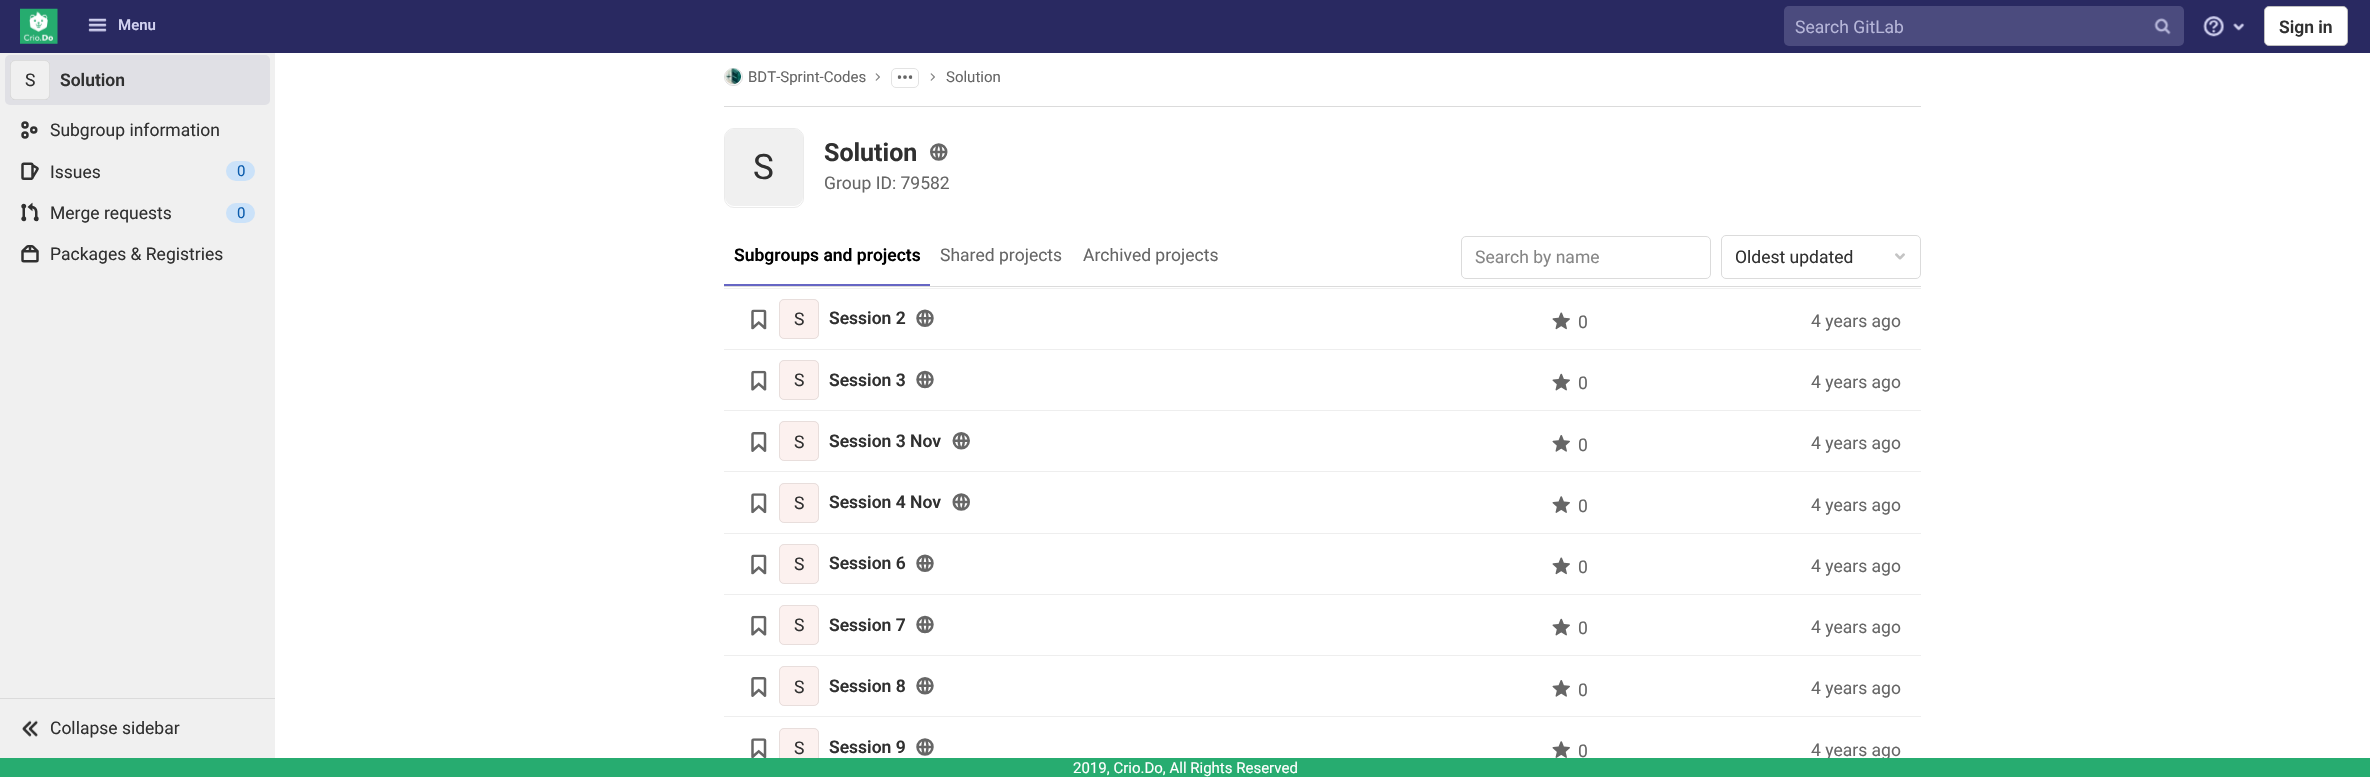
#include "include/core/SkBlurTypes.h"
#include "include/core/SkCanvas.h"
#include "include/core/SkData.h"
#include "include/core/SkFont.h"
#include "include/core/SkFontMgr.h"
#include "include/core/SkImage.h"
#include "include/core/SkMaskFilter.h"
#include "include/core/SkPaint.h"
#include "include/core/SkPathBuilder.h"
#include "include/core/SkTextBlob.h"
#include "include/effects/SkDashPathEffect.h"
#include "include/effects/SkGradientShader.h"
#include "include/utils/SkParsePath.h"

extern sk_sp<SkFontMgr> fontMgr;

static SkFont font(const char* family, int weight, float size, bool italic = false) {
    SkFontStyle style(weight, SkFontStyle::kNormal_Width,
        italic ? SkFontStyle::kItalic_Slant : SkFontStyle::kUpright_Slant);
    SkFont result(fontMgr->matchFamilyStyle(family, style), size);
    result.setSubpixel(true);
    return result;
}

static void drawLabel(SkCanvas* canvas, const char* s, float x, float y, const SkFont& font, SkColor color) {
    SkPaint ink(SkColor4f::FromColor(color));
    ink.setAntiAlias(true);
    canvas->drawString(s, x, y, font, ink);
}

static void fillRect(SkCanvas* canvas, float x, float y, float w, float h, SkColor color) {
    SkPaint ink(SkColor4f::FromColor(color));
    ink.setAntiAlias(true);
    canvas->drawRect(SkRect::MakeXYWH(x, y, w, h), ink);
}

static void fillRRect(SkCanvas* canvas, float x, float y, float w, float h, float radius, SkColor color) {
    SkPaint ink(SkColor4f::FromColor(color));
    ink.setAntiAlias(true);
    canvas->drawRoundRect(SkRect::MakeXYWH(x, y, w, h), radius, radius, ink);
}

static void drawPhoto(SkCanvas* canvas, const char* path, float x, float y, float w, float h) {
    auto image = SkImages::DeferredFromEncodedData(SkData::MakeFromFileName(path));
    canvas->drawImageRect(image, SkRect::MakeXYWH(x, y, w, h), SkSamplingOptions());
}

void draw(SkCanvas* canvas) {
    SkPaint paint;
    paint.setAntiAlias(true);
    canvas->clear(0xFFFFFFFF);
    fillRect(canvas, 0, 0, 2370, 53, 0xFF292961);
    drawPhoto(canvas, "assets/img1.png", 20, 8, 38, 36);
    drawPhoto(canvas, "assets/img2.png", 88, 18, 19, 14);
    SkFont font1 = font("Roboto", 600, 15);
    drawLabel(canvas, "Menu", 118, 30, font1, 0xFFD1D1F0);
    fillRRect(canvas, 1784, 6, 400, 40, 5, 0xFF4B4B7E);
    SkFont font2 = font("Roboto", 400, 17.5f);
    drawLabel(canvas, "Search GitLab", 1795, 33, font2, 0xFFB6B6D9);
    drawPhoto(canvas, "assets/img3.png", 2154, 18, 17, 17);
    drawPhoto(canvas, "assets/img4.png", 2203, 16, 21, 21);
    drawPhoto(canvas, "assets/img5.png", 2233, 23, 12, 8);
    paint.setColor(0xFFFFFFFF);
    canvas->drawRoundRect(SkRect::MakeXYWH(2264.5f, 6.5f, 83, 39), 4.5f, 4.5f, paint);
    paint.setStroke(true);
    paint.setStrokeWidth(1);
    paint.setColor(0xFFBFBFBF);
    canvas->drawRoundRect(SkRect::MakeXYWH(2264.5f, 6.5f, 83, 39), 4.5f, 4.5f, paint);
    SkFont font3 = font("Roboto", 600, 17.5f);
    drawLabel(canvas, "Sign in", 2279, 33, font3, 0xFF303030);
    fillRect(canvas, 0, 53, 275, 645, 0xFFF0F0F0);
    fillRRect(canvas, 5, 55, 265, 50, 5, 0xFFE0E0E5);
    paint.setColor(0x14000000);
    canvas->drawRoundRect(SkRect::MakeXYWH(10.5f, 60.5f, 39, 39), 4.5f, 4.5f, paint);
    fillRRect(canvas, 10, 60, 40, 40, 5, 0xFFF0F0F0);
    canvas->drawRoundRect(SkRect::MakeXYWH(10.5f, 60.5f, 39, 39), 4.5f, 4.5f, paint);
    drawLabel(canvas, "S", 25, 86, font2, 0xFF303030);
    drawLabel(canvas, "Solution", 60, 86, font3, 0xFF303030);
    drawPhoto(canvas, "assets/img6.png", 21, 121, 17, 18);
    drawLabel(canvas, "Subgroup information", 50, 136, font2, 0xFF303030);
    drawPhoto(canvas, "assets/img7.png", 21, 162, 18, 18);
    drawLabel(canvas, "Issues", 50, 178, font2, 0xFF303030);
    fillRRect(canvas, 226, 161, 29, 20, 10, 0xFFCBE2F9);
    SkFont font4 = font("Roboto", 400, 15);
    drawLabel(canvas, "0", 237, 176, font4, 0xFF0B5CAD);
    drawPhoto(canvas, "assets/img8.png", 21, 202, 18, 20);
    drawLabel(canvas, "Merge requests", 50, 219, font2, 0xFF303030);
    fillRRect(canvas, 226, 203, 29, 20, 10, 0xFFCBE2F9);
    drawLabel(canvas, "0", 237, 218, font4, 0xFF0B5CAD);
    drawPhoto(canvas, "assets/img9.png", 21, 245, 18, 18);
    drawLabel(canvas, "Packages & Registries", 50, 260, font2, 0xFF303030);
    fillRect(canvas, 0, 699, 275, 59, 0xFFF0F0F0);
    fillRect(canvas, 0, 698, 275, 1, 0xFFDBDBDB);
    drawPhoto(canvas, "assets/img10.png", 22, 720, 16, 17);
    drawLabel(canvas, "Collapse sidebar", 50, 734, font2, 0xFF303030);
    fillRect(canvas, 724, 106, 1197, 1, 0xFFDBDBDB);
    paint.setColor(0xFFDBDBDB);
    canvas->drawRoundRect(SkRect::MakeXYWH(724.5f, 68.5f, 18, 17), 8.5f, 8.5f, paint);
    drawPhoto(canvas, "assets/img11.png", 725, 68, 17, 17);
    drawLabel(canvas, "BDT-Sprint-Codes", 748, 82, font4, 0xFF666666);
    drawPhoto(canvas, "assets/img12.png", 875, 73, 5, 8);
    paint.setColor(0xFFE3E3E3);
    canvas->drawRoundRect(SkRect::MakeXYWH(891.5f, 68.5f, 27, 19), 4.5f, 4.5f, paint);
    drawPhoto(canvas, "assets/img13.png", 897, 75, 16, 4);
    drawPhoto(canvas, "assets/img12.png", 930, 73, 5, 8);
    drawLabel(canvas, "Solution", 946, 82, font4, 0xFF666666);
    paint.setColor(0xFFEBEBEB);
    canvas->drawRoundRect(SkRect::MakeXYWH(724.5f, 128.5f, 79, 79), 9.5f, 9.5f, paint);
    fillRRect(canvas, 725, 129, 78, 77, 9, 0xFFF0F0F0);
    SkFont font5 = font("Roboto", 400, 35);
    drawLabel(canvas, "S", 753, 179, font5, 0xFF303030);
    SkFont font6 = font("Roboto", 700, 25);
    drawLabel(canvas, "Solution", 824, 161, font6, 0xFF303030);
    drawPhoto(canvas, "assets/img14.png", 930, 143, 18, 18);
    drawLabel(canvas, "Group ID: 79582", 824, 189, font2, 0xFF666666);
    fillRect(canvas, 724, 286, 1197, 1, 0xFFDBDBDB);
    fillRect(canvas, 724, 284, 206, 2, 0xFF6666C4);
    drawLabel(canvas, "Subgroups and projects", 734, 261, font3, 0xFF000000);
    drawLabel(canvas, "Shared projects", 940, 261, font2, 0xFF666666);
    drawLabel(canvas, "Archived projects", 1083, 261, font2, 0xFF666666);
    paint.setColor(0xFFDBDBDB);
    canvas->drawRoundRect(SkRect::MakeXYWH(1461.5f, 236.5f, 249, 42), 4.5f, 4.5f, paint);
    drawLabel(canvas, "Search by name", 1475, 263, font2, 0xFF868686);
    canvas->drawRoundRect(SkRect::MakeXYWH(1721.5f, 235.5f, 199, 43), 4.5f, 4.5f, paint);
    drawLabel(canvas, "Oldest updated", 1735, 263, font2, 0xFF303030);
    drawPhoto(canvas, "assets/img15.png", 1895, 253, 10, 7);
    fillRect(canvas, 724, 288, 1197, 1, 0xFFF0F0F0);
    fillRect(canvas, 724, 349, 1197, 1, 0xFFEEEEEE);
    drawPhoto(canvas, "assets/img16.png", 751, 309, 16, 21);
    fillRRect(canvas, 779, 299, 40, 40, 5, 0xFFFCF1EF);
    paint.setColor(0x14000000);
    canvas->drawRoundRect(SkRect::MakeXYWH(779.5f, 299.5f, 39, 39), 4.5f, 4.5f, paint);
    drawLabel(canvas, "S", 794, 325, font2, 0xFF303030);
    drawLabel(canvas, "Session 2", 829, 324, font3, 0xFF303030);
    drawPhoto(canvas, "assets/img17.png", 916, 309, 18, 18);
    drawPhoto(canvas, "assets/img18.png", 1552, 312, 18, 18);
    drawLabel(canvas, "0", 1578, 328, font2, 0xFF666666);
    drawLabel(canvas, "4 years ago", 1811, 327, font2, 0xFF666666);
    fillRect(canvas, 724, 410, 1197, 1, 0xFFEEEEEE);
    drawPhoto(canvas, "assets/img19.png", 751, 370, 16, 21);
    fillRRect(canvas, 779, 360, 40, 40, 5, 0xFFFCF1EF);
    canvas->drawRoundRect(SkRect::MakeXYWH(779.5f, 360.5f, 39, 39), 4.5f, 4.5f, paint);
    drawLabel(canvas, "S", 794, 386, font2, 0xFF303030);
    drawLabel(canvas, "Session 3", 829, 386, font3, 0xFF303030);
    drawPhoto(canvas, "assets/img20.png", 916, 370, 18, 19);
    drawPhoto(canvas, "assets/img21.png", 1552, 373, 18, 18);
    drawLabel(canvas, "0", 1578, 389, font2, 0xFF666666);
    drawLabel(canvas, "4 years ago", 1811, 388, font2, 0xFF666666);
    fillRect(canvas, 724, 471, 1197, 1, 0xFFEEEEEE);
    drawPhoto(canvas, "assets/img22.png", 751, 432, 16, 20);
    fillRRect(canvas, 779, 421, 40, 40, 5, 0xFFFCF1EF);
    canvas->drawRoundRect(SkRect::MakeXYWH(779.5f, 421.5f, 39, 39), 4.5f, 4.5f, paint);
    drawLabel(canvas, "S", 794, 448, font2, 0xFF303030);
    drawLabel(canvas, "Session 3 Nov", 829, 447, font3, 0xFF303030);
    drawPhoto(canvas, "assets/img23.png", 952, 432, 18, 18);
    drawPhoto(canvas, "assets/img24.png", 1552, 435, 18, 17);
    drawLabel(canvas, "0", 1578, 451, font2, 0xFF666666);
    drawLabel(canvas, "4 years ago", 1811, 449, font2, 0xFF666666);
    fillRect(canvas, 724, 533, 1197, 1, 0xFFEEEEEE);
    drawPhoto(canvas, "assets/img25.png", 751, 493, 16, 21);
    fillRRect(canvas, 779, 483, 40, 40, 5, 0xFFFCF1EF);
    canvas->drawRoundRect(SkRect::MakeXYWH(779.5f, 483.5f, 39, 39), 4.5f, 4.5f, paint);
    drawLabel(canvas, "S", 794, 509, font2, 0xFF303030);
    drawLabel(canvas, "Session 4 Nov", 829, 508, font3, 0xFF303030);
    drawPhoto(canvas, "assets/img26.png", 952, 493, 18, 18);
    drawPhoto(canvas, "assets/img27.png", 1552, 496, 18, 17);
    drawLabel(canvas, "0", 1578, 512, font2, 0xFF666666);
    drawLabel(canvas, "4 years ago", 1811, 511, font2, 0xFF666666);
    fillRect(canvas, 724, 594, 1197, 1, 0xFFEEEEEE);
    drawPhoto(canvas, "assets/img16.png", 751, 554, 16, 21);
    fillRRect(canvas, 779, 544, 40, 40, 5, 0xFFFCF1EF);
    canvas->drawRoundRect(SkRect::MakeXYWH(779.5f, 544.5f, 39, 39), 4.5f, 4.5f, paint);
    drawLabel(canvas, "S", 794, 570, font2, 0xFF303030);
    drawLabel(canvas, "Session 6", 829, 569, font3, 0xFF303030);
    drawPhoto(canvas, "assets/img17.png", 916, 554, 18, 18);
    drawPhoto(canvas, "assets/img18.png", 1552, 557, 18, 18);
    drawLabel(canvas, "0", 1578, 573, font2, 0xFF666666);
    drawLabel(canvas, "4 years ago", 1811, 572, font2, 0xFF666666);
    fillRect(canvas, 724, 655, 1197, 1, 0xFFEEEEEE);
    drawPhoto(canvas, "assets/img19.png", 751, 615, 16, 21);
    fillRRect(canvas, 779, 605, 40, 40, 5, 0xFFFCF1EF);
    canvas->drawRoundRect(SkRect::MakeXYWH(779.5f, 605.5f, 39, 39), 4.5f, 4.5f, paint);
    drawLabel(canvas, "S", 794, 631, font2, 0xFF303030);
    drawLabel(canvas, "Session 7", 829, 631, font3, 0xFF303030);
    drawPhoto(canvas, "assets/img20.png", 916, 615, 18, 19);
    drawPhoto(canvas, "assets/img21.png", 1552, 618, 18, 18);
    drawLabel(canvas, "0", 1578, 634, font2, 0xFF666666);
    drawLabel(canvas, "4 years ago", 1811, 633, font2, 0xFF666666);
    fillRect(canvas, 724, 716, 1197, 1, 0xFFEEEEEE);
    drawPhoto(canvas, "assets/img22.png", 751, 677, 16, 20);
    fillRRect(canvas, 779, 666, 40, 40, 5, 0xFFFCF1EF);
    canvas->drawRoundRect(SkRect::MakeXYWH(779.5f, 666.5f, 39, 39), 4.5f, 4.5f, paint);
    drawLabel(canvas, "S", 794, 693, font2, 0xFF303030);
    drawLabel(canvas, "Session 8", 829, 692, font3, 0xFF303030);
    drawPhoto(canvas, "assets/img28.png", 916, 677, 18, 18);
    drawPhoto(canvas, "assets/img24.png", 1552, 680, 18, 17);
    drawLabel(canvas, "0", 1578, 696, font2, 0xFF666666);
    drawLabel(canvas, "4 years ago", 1811, 694, font2, 0xFF666666);
    drawPhoto(canvas, "assets/img29.png", 751, 738, 16, 20);
    fillRRect(canvas, 779, 728, 40, 40, 5, 0xFFFCF1EF);
    canvas->drawRoundRect(SkRect::MakeXYWH(779.5f, 728.5f, 39, 39), 4.5f, 4.5f, paint);
    drawLabel(canvas, "S", 794, 754, font2, 0xFF303030);
    drawLabel(canvas, "Session 9", 829, 753, font3, 0xFF303030);
    drawPhoto(canvas, "assets/img30.png", 916, 738, 18, 18);
    drawPhoto(canvas, "assets/img31.png", 1552, 741, 18, 17);
    drawLabel(canvas, "0", 1578, 757, font2, 0xFF666666);
    drawLabel(canvas, "4 years ago", 1811, 756, font2, 0xFF666666);
    fillRect(canvas, 0, 758, 2370, 19, 0xFF27AC70);
    drawLabel(canvas, "2019, Crio.Do, All Rights Reserved", 1073, 773, font4, 0xFFFFFFFF);
}
